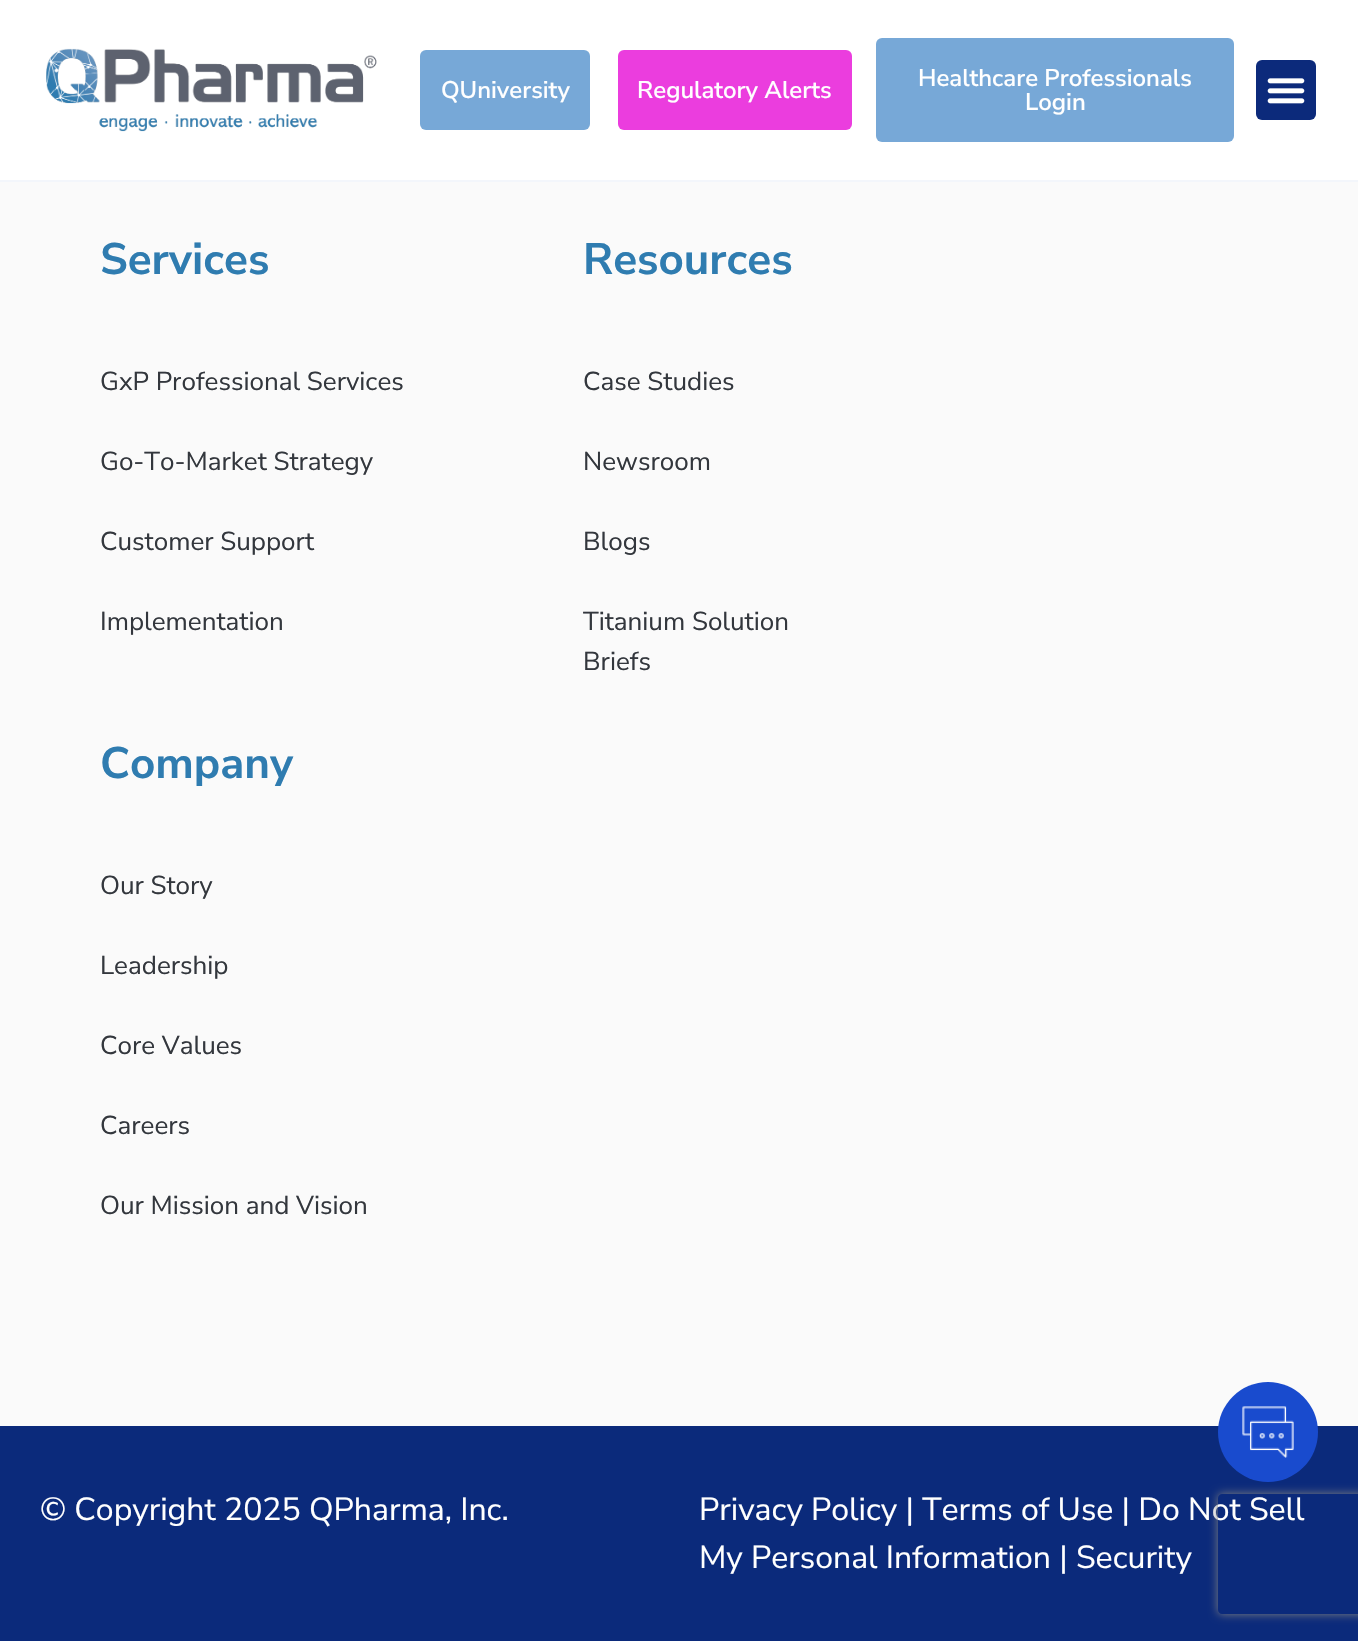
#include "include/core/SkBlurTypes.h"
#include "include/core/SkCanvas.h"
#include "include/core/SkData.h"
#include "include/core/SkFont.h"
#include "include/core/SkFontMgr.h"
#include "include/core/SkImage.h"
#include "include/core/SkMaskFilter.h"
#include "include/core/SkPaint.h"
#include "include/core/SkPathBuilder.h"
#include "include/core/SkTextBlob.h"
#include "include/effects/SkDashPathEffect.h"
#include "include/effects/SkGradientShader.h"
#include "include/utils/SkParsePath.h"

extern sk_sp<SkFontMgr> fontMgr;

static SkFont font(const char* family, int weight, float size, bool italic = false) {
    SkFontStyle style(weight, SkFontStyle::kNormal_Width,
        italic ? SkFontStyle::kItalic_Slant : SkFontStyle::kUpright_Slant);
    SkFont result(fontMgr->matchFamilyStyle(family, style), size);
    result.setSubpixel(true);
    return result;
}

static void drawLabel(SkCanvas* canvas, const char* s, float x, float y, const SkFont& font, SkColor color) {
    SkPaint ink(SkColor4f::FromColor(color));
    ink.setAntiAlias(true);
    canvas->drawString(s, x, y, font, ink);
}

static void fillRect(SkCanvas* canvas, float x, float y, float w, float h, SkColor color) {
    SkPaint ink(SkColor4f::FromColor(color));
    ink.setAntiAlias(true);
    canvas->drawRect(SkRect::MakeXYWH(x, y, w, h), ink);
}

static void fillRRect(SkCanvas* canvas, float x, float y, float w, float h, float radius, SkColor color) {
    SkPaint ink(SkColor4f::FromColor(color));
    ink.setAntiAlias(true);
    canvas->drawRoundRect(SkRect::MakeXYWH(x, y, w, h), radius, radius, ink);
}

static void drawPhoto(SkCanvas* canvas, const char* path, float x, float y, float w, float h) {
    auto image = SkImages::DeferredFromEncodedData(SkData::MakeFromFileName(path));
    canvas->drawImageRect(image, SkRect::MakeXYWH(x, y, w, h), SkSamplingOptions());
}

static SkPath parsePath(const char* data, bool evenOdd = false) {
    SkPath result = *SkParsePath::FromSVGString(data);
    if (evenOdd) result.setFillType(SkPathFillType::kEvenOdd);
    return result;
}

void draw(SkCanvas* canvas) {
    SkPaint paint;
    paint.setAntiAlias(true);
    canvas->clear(0xFFFAFAFA);
    fillRect(canvas, 0, 0, 1358, 180, 0xFFFFFFFF);
    fillRect(canvas, 0, 180, 1358, 2, 0xFFF3F6FB);
    drawPhoto(canvas, "assets/img1.png", 46, 48, 331, 84);
    fillRRect(canvas, 420, 50, 170, 80, 6, 0xFF77A8D7);
    SkFont font1 = font("Nunito Sans", 600, 24);
    drawLabel(canvas, "QUniversity", 441, 98, font1, 0xFFFFFFFF);
    fillRRect(canvas, 618, 50, 234, 80, 6, 0xFFEB3DDE);
    drawLabel(canvas, "Regulatory Alerts", 637, 98, font1, 0xFFFFFFFF);
    fillRRect(canvas, 876, 38, 358, 104, 6, 0xFF77A8D7);
    drawLabel(canvas, "Healthcare Professionals", 918, 86, font1, 0xFFFFFFFF);
    drawLabel(canvas, "Login", 1025, 110, font1, 0xFFFFFFFF);
    fillRRect(canvas, 1256, 60, 60, 60, 6, 0xFF0C2A7B);
    drawPhoto(canvas, "assets/img2.png", 1267, 78, 38, 26);
    SkFont font2 = font("Nunito Sans", 700, 44);
    drawLabel(canvas, "Services", 100, 274, font2, 0xFF2F7CB0);
    SkFont font3 = font("Nunito Sans", 400, 26);
    drawLabel(canvas, "GxP Professional Services", 100, 390, font3, 0xFF33373D);
    drawLabel(canvas, "Go-To-Market Strategy", 100, 470, font3, 0xFF33373D);
    drawLabel(canvas, "Customer Support", 100, 550, font3, 0xFF33373D);
    drawLabel(canvas, "Implementation", 100, 630, font3, 0xFF33373D);
    drawLabel(canvas, "Resources", 583, 274, font2, 0xFF2F7CB0);
    drawLabel(canvas, "Case Studies", 583, 390, font3, 0xFF33373D);
    drawLabel(canvas, "Newsroom", 583, 470, font3, 0xFF33373D);
    drawLabel(canvas, "Blogs", 583, 550, font3, 0xFF33373D);
    drawLabel(canvas, "Titanium Solution", 583, 630, font3, 0xFF33373D);
    drawLabel(canvas, "Briefs", 583, 670, font3, 0xFF33373D);
    drawLabel(canvas, "Company", 100, 778, font2, 0xFF2F7CB0);
    drawLabel(canvas, "Our Story", 100, 894, font3, 0xFF33373D);
    drawLabel(canvas, "Leadership", 100, 974, font3, 0xFF33373D);
    drawLabel(canvas, "Core Values", 100, 1054, font3, 0xFF33373D);
    drawLabel(canvas, "Careers", 100, 1134, font3, 0xFF33373D);
    drawLabel(canvas, "Our Mission and Vision", 100, 1214, font3, 0xFF33373D);
    fillRect(canvas, 0, 1426, 1358, 215, 0xFF0B2A7B);
    SkFont font4 = font("Nunito Sans", 400, 32);
    drawLabel(canvas, "© Copyright 2025 QPharma, Inc.", 40, 1520, font4, 0xFFFFFFFF);
    drawLabel(canvas, "Privacy Policy | Terms of Use | Do Not Sell", 699, 1520, font4, 0xFFFFFFFF);
    drawLabel(canvas, "My Personal Information | Security", 699, 1568, font4, 0xFFFFFFFF);
    canvas->save();
    canvas->clipPath(parsePath("M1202 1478H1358V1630H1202ZM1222 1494H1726C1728 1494 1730 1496 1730 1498V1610C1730 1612 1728 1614 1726 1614H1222C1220 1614 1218 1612 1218 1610V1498C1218 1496 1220 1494 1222 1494Z", true), true);
    paint.setColor(0xFF808080);
    paint.setMaskFilter(SkMaskFilter::MakeBlur(kNormal_SkBlurStyle, 5));
    canvas->drawRoundRect(SkRect::MakeXYWH(1218, 1494, 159, 120), 4, 4, paint);
    paint.setMaskFilter(nullptr);
    canvas->restore();
    paint.setColor(0xFF194BCE);
    canvas->drawCircle(1268, 1432, 50, paint);
    drawPhoto(canvas, "assets/img3.png", 1242, 1406, 52, 52);
}
